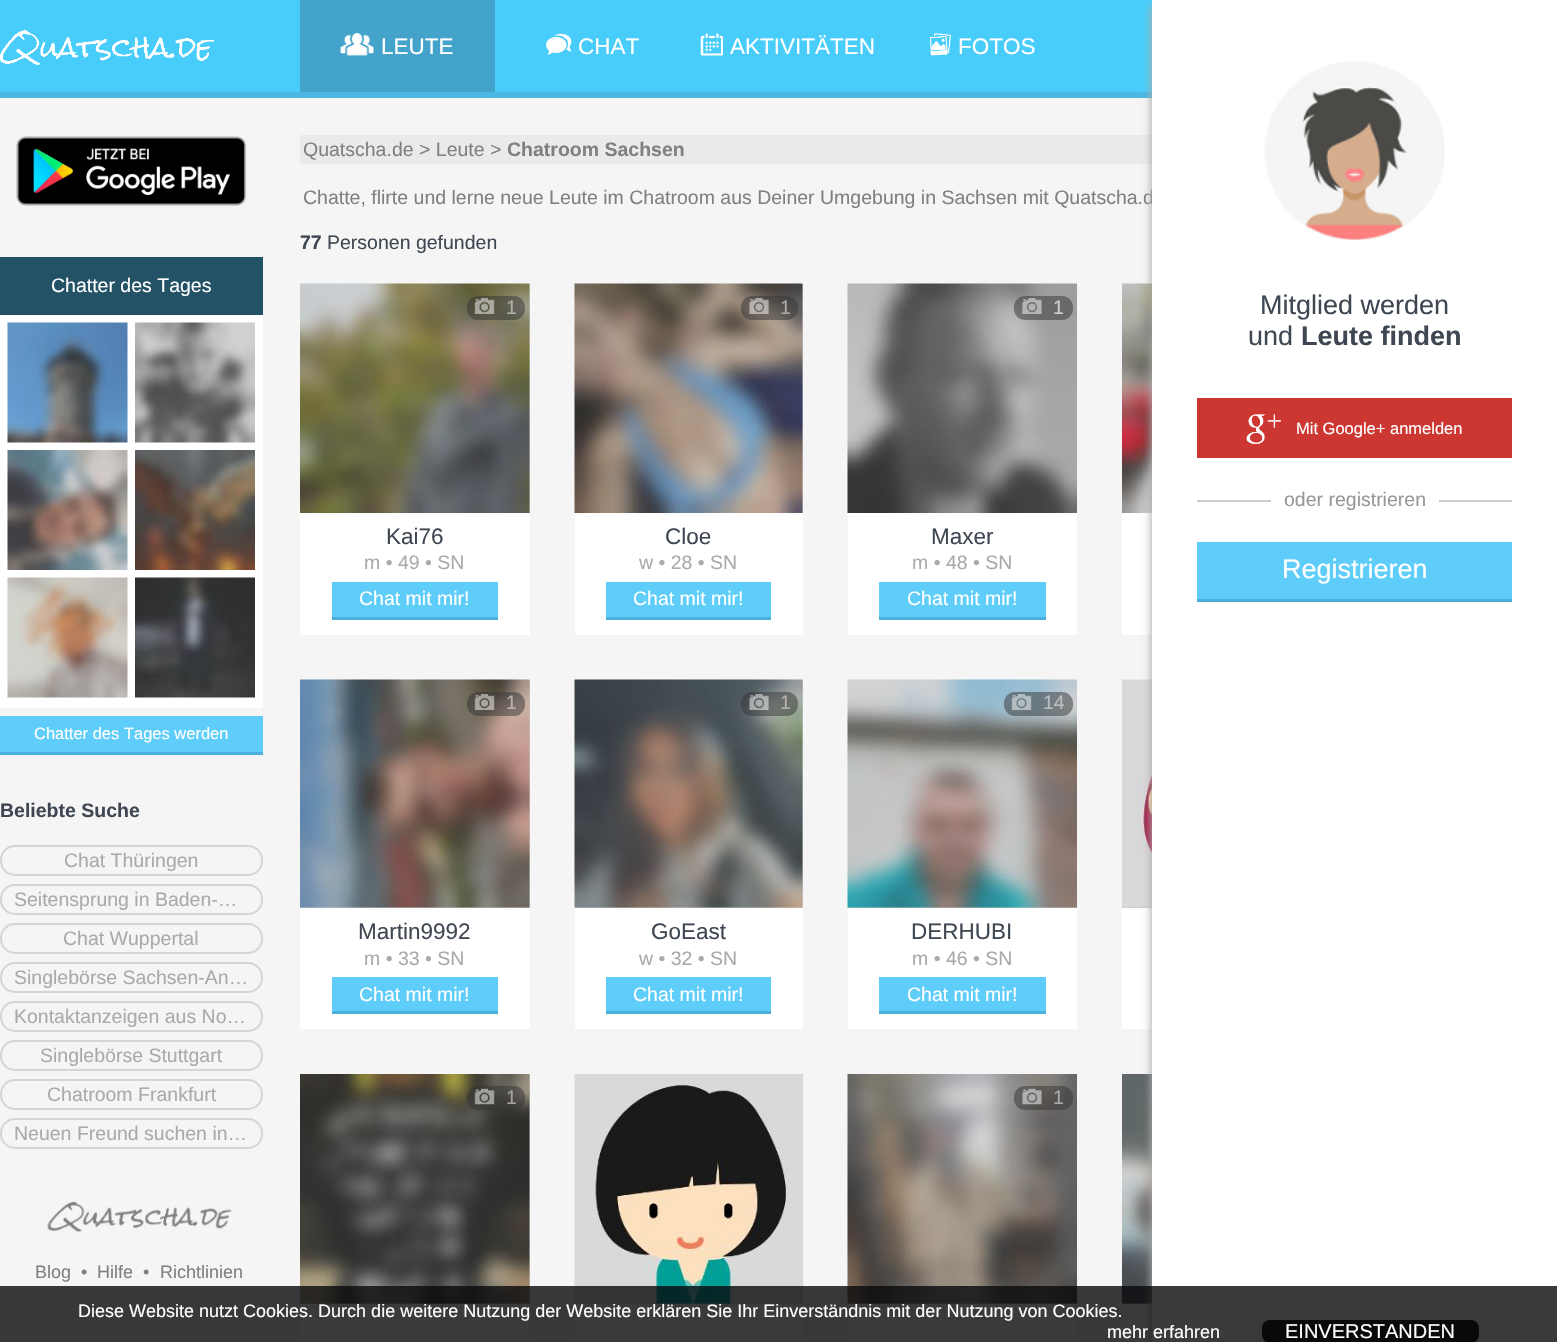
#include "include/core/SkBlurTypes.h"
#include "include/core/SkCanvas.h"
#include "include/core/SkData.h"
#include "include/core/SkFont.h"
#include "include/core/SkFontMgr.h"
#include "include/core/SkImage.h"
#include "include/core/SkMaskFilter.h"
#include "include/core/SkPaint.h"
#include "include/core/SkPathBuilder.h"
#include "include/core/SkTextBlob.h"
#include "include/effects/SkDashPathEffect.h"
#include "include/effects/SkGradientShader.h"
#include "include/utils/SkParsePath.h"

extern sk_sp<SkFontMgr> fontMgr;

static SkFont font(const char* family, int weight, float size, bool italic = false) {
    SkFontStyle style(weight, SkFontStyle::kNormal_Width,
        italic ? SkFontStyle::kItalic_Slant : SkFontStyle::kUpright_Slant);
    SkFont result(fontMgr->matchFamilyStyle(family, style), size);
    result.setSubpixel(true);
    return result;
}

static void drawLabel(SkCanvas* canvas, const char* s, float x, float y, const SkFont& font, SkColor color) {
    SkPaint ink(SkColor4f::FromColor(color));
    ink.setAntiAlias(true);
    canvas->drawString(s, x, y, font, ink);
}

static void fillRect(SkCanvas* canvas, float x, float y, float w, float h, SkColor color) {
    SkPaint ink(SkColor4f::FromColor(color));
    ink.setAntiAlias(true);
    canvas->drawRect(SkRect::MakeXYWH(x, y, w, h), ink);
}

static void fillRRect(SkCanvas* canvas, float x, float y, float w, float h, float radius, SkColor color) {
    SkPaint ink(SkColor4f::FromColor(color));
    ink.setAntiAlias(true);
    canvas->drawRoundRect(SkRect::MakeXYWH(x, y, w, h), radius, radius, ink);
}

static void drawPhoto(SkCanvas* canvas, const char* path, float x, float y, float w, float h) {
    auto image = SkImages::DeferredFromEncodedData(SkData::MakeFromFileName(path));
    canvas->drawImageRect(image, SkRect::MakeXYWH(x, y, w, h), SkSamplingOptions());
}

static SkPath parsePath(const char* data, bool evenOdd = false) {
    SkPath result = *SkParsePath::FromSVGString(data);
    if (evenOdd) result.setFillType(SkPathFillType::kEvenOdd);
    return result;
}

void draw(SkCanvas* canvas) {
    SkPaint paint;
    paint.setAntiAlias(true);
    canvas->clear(0xFFF5F5F5);
    fillRect(canvas, 0, 0, 1152, 92, 0xFF48CDFA);
    fillRect(canvas, 0, 92, 1152, 6, 0xFF4BB7E2);
    drawPhoto(canvas, "assets/img1.png", 0, 30, 214, 35);
    fillRect(canvas, 300, 0, 195, 92, 0xFF43A3CA);
    drawPhoto(canvas, "assets/img2.png", 340, 33, 34, 23);
    SkFont font1 = font("Liberation Sans", 400, 22.5f);
    drawLabel(canvas, "LEUTE", 381, 54, font1, 0xFFFFFFFF);
    drawPhoto(canvas, "assets/img3.png", 546, 33, 26, 22);
    drawLabel(canvas, "CHAT", 578, 54, font1, 0xFFFFFFFF);
    drawPhoto(canvas, "assets/img4.png", 700, 33, 23, 23);
    drawLabel(canvas, "AKTIVITÄTEN", 730, 54, font1, 0xFFFFFFFF);
    drawPhoto(canvas, "assets/img5.png", 930, 33, 21, 23);
    drawLabel(canvas, "FOTOS", 958, 54, font1, 0xFFFFFFFF);
    drawPhoto(canvas, "assets/img6.png", 16, 136, 231, 70);
    fillRect(canvas, 0, 257, 263, 58, 0xFF235166);
    SkFont font2 = font("Liberation Sans", 400, 19.5f);
    drawLabel(canvas, "Chatter des Tages", 51, 292, font2, 0xFFFFFFFF);
    fillRect(canvas, 0, 315, 263, 393, 0xFFFFFFFF);
    drawPhoto(canvas, "assets/img7.png", 7, 322, 121, 121);
    drawPhoto(canvas, "assets/img8.png", 135, 322, 120, 121);
    drawPhoto(canvas, "assets/img9.png", 7, 450, 121, 120);
    drawPhoto(canvas, "assets/img10.png", 135, 450, 120, 120);
    drawPhoto(canvas, "assets/img11.png", 7, 577, 121, 121);
    drawPhoto(canvas, "assets/img12.png", 135, 577, 120, 121);
    fillRect(canvas, 0, 716, 263, 36, 0xFF5ECDF9);
    fillRect(canvas, 0, 752, 263, 3, 0xFF4AAFDB);
    SkFont font3 = font("Liberation Sans", 400, 16.5f);
    drawLabel(canvas, "Chatter des Tages werden", 34, 739, font3, 0xFFFFFFFF);
    SkFont font4 = font("Liberation Sans", 700, 19.5f);
    drawLabel(canvas, "Beliebte Suche", 0, 817, font4, 0xFF3F4752);
    paint.setStroke(true);
    paint.setStrokeWidth(2);
    paint.setColor(0xFFD5D5D5);
    canvas->drawRoundRect(SkRect::MakeXYWH(1, 846, 261, 29), 14, 14, paint);
    drawLabel(canvas, "Chat Thüringen", 64, 867, font2, 0xFFAAAAAA);
    canvas->drawRoundRect(SkRect::MakeXYWH(1, 885, 261, 29), 14, 14, paint);
    drawLabel(canvas, "Seitensprung in Baden-…", 14, 906, font2, 0xFFAAAAAA);
    canvas->drawRoundRect(SkRect::MakeXYWH(1, 924, 261, 29), 14, 14, paint);
    drawLabel(canvas, "Chat Wuppertal", 63, 945, font2, 0xFFAAAAAA);
    canvas->drawRoundRect(SkRect::MakeXYWH(1, 963, 261, 29), 14, 14, paint);
    drawLabel(canvas, "Singlebörse Sachsen-An…", 14, 984, font2, 0xFFAAAAAA);
    canvas->drawRoundRect(SkRect::MakeXYWH(1, 1002, 261, 29), 14, 14, paint);
    drawLabel(canvas, "Kontaktanzeigen aus No…", 14, 1023, font2, 0xFFAAAAAA);
    canvas->drawRoundRect(SkRect::MakeXYWH(1, 1041, 261, 29), 14, 14, paint);
    drawLabel(canvas, "Singlebörse Stuttgart", 40, 1062, font2, 0xFFAAAAAA);
    canvas->drawRoundRect(SkRect::MakeXYWH(1, 1080, 261, 29), 14, 14, paint);
    drawLabel(canvas, "Chatroom Frankfurt", 47, 1101, font2, 0xFFAAAAAA);
    canvas->drawRoundRect(SkRect::MakeXYWH(1, 1119, 261, 29), 14, 14, paint);
    drawLabel(canvas, "Neuen Freund suchen in…", 14, 1140, font2, 0xFFAAAAAA);
    drawPhoto(canvas, "assets/img13.png", 47, 1201, 184, 32);
    SkFont font5 = font("Liberation Sans", 400, 18);
    drawLabel(canvas, "Blog", 35, 1278, font5, 0xFF808080);
    drawLabel(canvas, "•", 81, 1278, font5, 0xFF808080);
    drawLabel(canvas, "Hilfe", 97, 1278, font5, 0xFF808080);
    drawLabel(canvas, "•", 143, 1278, font5, 0xFF808080);
    drawLabel(canvas, "Richtlinien", 160, 1278, font5, 0xFF808080);
    fillRect(canvas, 300, 135, 852, 29, 0xFFEAEAEA);
    drawLabel(canvas, "Quatscha.de > Leute >", 303, 156, font2, 0xFF808080);
    drawLabel(canvas, "Chatroom Sachsen", 507, 156, font4, 0xFF808080);
    drawLabel(canvas, "Chatte, flirte und lerne neue Leute im Chatroom aus Deiner Umgebung in Sachsen mit Quatscha.d", 303, 204, font2, 0xFF808080);
    drawLabel(canvas, "77", 300, 249, font4, 0xFF3F4752);
    drawLabel(canvas, "Personen gefunden", 327, 249, font2, 0xFF3F4752);
    fillRect(canvas, 529, 284, 1, 229, 0xFFC9C9C9);
    drawPhoto(canvas, "assets/img14.png", 300, 283, 230, 230);
    fillRRect(canvas, 467, 296, 58, 24, 11, 0x80333333);
    drawPhoto(canvas, "assets/img15.png", 474, 298, 21, 16);
    drawLabel(canvas, "1", 506, 314, font2, 0xFFB0AFAA);
    fillRect(canvas, 300, 513, 230, 122, 0xFFFFFFFF);
    drawLabel(canvas, "Kai76", 386, 544, font1, 0xFF3F4752);
    drawLabel(canvas, "m • 49 • SN", 364, 569, font2, 0xFFAAAAAA);
    fillRect(canvas, 332, 582, 166, 35, 0xFF5ECDF9);
    fillRect(canvas, 332, 617, 166, 3, 0xFF4AAFDB);
    drawLabel(canvas, "Chat mit mir!", 359, 605, font2, 0xFFFFFFFF);
    canvas->save();
    canvas->clipRect(SkRect::MakeXYWH(332, 582, 166, 35));
    paint.setStroke(false);
    paint.setColor(0xFFF8BD48);
    canvas->drawPath(parsePath("M363 628.5H351L357 616.5Z"), paint);
    canvas->restore();
    fillRect(canvas, 802, 284, 1, 229, 0xFFC9C9C9);
    drawPhoto(canvas, "assets/img16.png", 574, 283, 229, 230);
    fillRRect(canvas, 741, 296, 57, 24, 11, 0x80333333);
    drawPhoto(canvas, "assets/img17.png", 749, 298, 20, 16);
    drawLabel(canvas, "1", 780, 314, font2, 0xFFAAAAAA);
    fillRect(canvas, 575, 513, 228, 122, 0xFFFFFFFF);
    drawLabel(canvas, "Cloe", 665, 544, font1, 0xFF3F4752);
    drawLabel(canvas, "w • 28 • SN", 639, 569, font2, 0xFFAAAAAA);
    fillRect(canvas, 606, 582, 165, 35, 0xFF5ECDF9);
    fillRect(canvas, 606, 617, 165, 3, 0xFF4AAFDB);
    drawLabel(canvas, "Chat mit mir!", 633, 605, font2, 0xFFFFFFFF);
    canvas->save();
    canvas->clipRect(SkRect::MakeXYWH(606, 582, 165, 35));
    canvas->drawPath(parsePath("M637.5 628.5H625.5L631.5 616.5Z"), paint);
    canvas->restore();
    drawPhoto(canvas, "assets/img18.png", 847, 283, 230, 230);
    fillRRect(canvas, 1014, 296, 59, 24, 11, 0x80333333);
    drawPhoto(canvas, "assets/img19.png", 1022, 298, 20, 16);
    drawLabel(canvas, "1", 1053, 314, font2, 0xFFCFCFCF);
    fillRect(canvas, 848, 513, 229, 122, 0xFFFFFFFF);
    drawLabel(canvas, "Maxer", 931, 544, font1, 0xFF3F4752);
    drawLabel(canvas, "m • 48 • SN", 912, 569, font2, 0xFFAAAAAA);
    fillRect(canvas, 879, 582, 167, 35, 0xFF5ECDF9);
    fillRect(canvas, 879, 617, 167, 3, 0xFF4AAFDB);
    drawLabel(canvas, "Chat mit mir!", 907, 605, font2, 0xFFFFFFFF);
    canvas->save();
    canvas->clipRect(SkRect::MakeXYWH(879, 582, 167, 35));
    canvas->drawPath(parsePath("M910.5 628.5H898.5L904.5 616.5Z"), paint);
    canvas->restore();
    drawPhoto(canvas, "assets/img20.png", 1122, 283, 30, 230);
    fillRect(canvas, 1122, 513, 30, 122, 0xFFFFFFFF);
    fillRect(canvas, 300, 680, 230, 228, 0xFFC9C9C9);
    drawPhoto(canvas, "assets/img21.png", 300, 679, 230, 229);
    fillRRect(canvas, 467, 692, 58, 24, 11, 0x80333333);
    drawPhoto(canvas, "assets/img22.png", 474, 694, 21, 16);
    drawLabel(canvas, "1", 506, 709, font2, 0xFFB7B2AF);
    fillRect(canvas, 300, 908, 230, 121, 0xFFFFFFFF);
    drawLabel(canvas, "Martin9992", 358, 939, font1, 0xFF3F4752);
    drawLabel(canvas, "m • 33 • SN", 364, 965, font2, 0xFFAAAAAA);
    fillRect(canvas, 332, 977, 166, 34, 0xFF5ECDF9);
    fillRect(canvas, 332, 1011, 166, 3, 0xFF4AAFDB);
    drawLabel(canvas, "Chat mit mir!", 359, 1001, font2, 0xFFFFFFFF);
    fillRect(canvas, 575, 680, 228, 228, 0xFFC9C9C9);
    drawPhoto(canvas, "assets/img23.png", 574, 679, 229, 229);
    fillRRect(canvas, 741, 692, 57, 24, 11, 0x80333333);
    drawPhoto(canvas, "assets/img24.png", 749, 694, 20, 16);
    drawLabel(canvas, "1", 780, 709, font2, 0xFFB7B2AF);
    fillRect(canvas, 575, 908, 228, 121, 0xFFFFFFFF);
    drawLabel(canvas, "GoEast", 651, 939, font1, 0xFF3F4752);
    drawLabel(canvas, "w • 32 • SN", 639, 965, font2, 0xFFAAAAAA);
    fillRect(canvas, 606, 977, 165, 34, 0xFF5ECDF9);
    fillRect(canvas, 606, 1011, 165, 3, 0xFF4AAFDB);
    drawLabel(canvas, "Chat mit mir!", 633, 1001, font2, 0xFFFFFFFF);
    fillRect(canvas, 848, 907, 229, 1, 0xFFC9C9C9);
    drawPhoto(canvas, "assets/img25.png", 847, 679, 230, 229);
    fillRRect(canvas, 1004, 692, 69, 24, 11, 0x80333333);
    drawPhoto(canvas, "assets/img26.png", 1011, 694, 21, 16);
    drawLabel(canvas, "14", 1043, 709, font2, 0xFFBABEC0);
    fillRect(canvas, 848, 908, 229, 121, 0xFFFFFFFF);
    drawLabel(canvas, "DERHUBI", 911, 939, font1, 0xFF3F4752);
    drawLabel(canvas, "m • 46 • SN", 912, 965, font2, 0xFFAAAAAA);
    fillRect(canvas, 879, 977, 167, 34, 0xFF5ECDF9);
    fillRect(canvas, 879, 1011, 167, 3, 0xFF4AAFDB);
    drawLabel(canvas, "Chat mit mir!", 907, 1001, font2, 0xFFFFFFFF);
    fillRect(canvas, 1122, 907, 30, 1, 0xFFC9C9C9);
    drawPhoto(canvas, "assets/img27.png", 1122, 679, 30, 229);
    fillRect(canvas, 1122, 908, 30, 121, 0xFFFFFFFF);
    fillRect(canvas, 300, 1074, 230, 230, 0xFFC9C9C9);
    drawPhoto(canvas, "assets/img28.png", 300, 1074, 230, 230);
    fillRRect(canvas, 467, 1086, 58, 24, 11, 0x80333333);
    drawPhoto(canvas, "assets/img29.png", 474, 1088, 21, 17);
    drawLabel(canvas, "1", 506, 1104, font2, 0xFFA4A3A1);
    fillRect(canvas, 300, 1304, 230, 38, 0xFFFFFFFF);
    fillRect(canvas, 575, 1074, 228, 230, 0xFFC9C9C9);
    drawPhoto(canvas, "assets/img30.png", 574, 1074, 229, 230);
    fillRect(canvas, 575, 1304, 228, 38, 0xFFFFFFFF);
    fillRect(canvas, 848, 1303, 229, 1, 0xFFC9C9C9);
    drawPhoto(canvas, "assets/img31.png", 847, 1074, 230, 230);
    fillRRect(canvas, 1014, 1086, 59, 24, 11, 0x80333333);
    drawPhoto(canvas, "assets/img32.png", 1022, 1088, 20, 17);
    drawLabel(canvas, "1", 1053, 1104, font2, 0xFFAAAAAA);
    fillRect(canvas, 848, 1304, 229, 38, 0xFFFFFFFF);
    fillRect(canvas, 1122, 1303, 30, 1, 0xFFC9C9C9);
    drawPhoto(canvas, "assets/img33.png", 1122, 1074, 30, 230);
    fillRect(canvas, 1122, 1304, 30, 38, 0xFFFFFFFF);
    paint.setColor(0xFFAAAAAA);
    paint.setMaskFilter(SkMaskFilter::MakeBlur(kNormal_SkBlurStyle, 4));
    canvas->drawRect(SkRect::MakeXYWH(1151, 6, 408, 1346), paint);
    paint.setMaskFilter(nullptr);
    fillRect(canvas, 1152, 0, 405, 1342, 0xFFFFFFFF);
    drawPhoto(canvas, "assets/img34.png", 1264, 61, 181, 179);
    SkFont font6 = font("Liberation Sans", 400, 27);
    drawLabel(canvas, "Mitglied werden", 1260, 314, font6, 0xFF3F4752);
    drawLabel(canvas, "und", 1248, 345, font6, 0xFF3F4752);
    SkFont font7 = font("Liberation Sans", 700, 27);
    drawLabel(canvas, "Leute finden", 1301, 345, font7, 0xFF3F4752);
    fillRect(canvas, 1197, 398, 315, 60, 0xFFCC3732);
    drawPhoto(canvas, "assets/img35.png", 1246, 414, 35, 30);
    drawLabel(canvas, "Mit Google+ anmelden", 1296, 434, font3, 0xFFFFFFFF);
    fillRect(canvas, 1197, 500, 74, 2, 0xFFCCCCCC);
    drawLabel(canvas, "oder registrieren", 1284, 506, font2, 0xFF979797);
    fillRect(canvas, 1439, 500, 73, 2, 0xFFCCCCCC);
    fillRect(canvas, 1197, 542, 315, 57, 0xFF5ECDF9);
    fillRect(canvas, 1197, 599, 315, 3, 0xFF4AAFDB);
    drawLabel(canvas, "Registrieren", 1282, 578, font6, 0xFFFFFFFF);
    fillRect(canvas, 0, 1286, 1557, 56, 0xCC08090B);
    drawLabel(canvas, "Diese Website nutzt Cookies. Durch die weitere Nutzung der Website erklären Sie Ihr Einverständnis mit der Nutzung von Cookies.", 78, 1317, font5, 0xFFFFFFFF);
    drawLabel(canvas, "mehr erfahren", 1107, 1338, font5, 0xFFFFFFFF);
    fillRRect(canvas, 1262, 1320, 217, 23, 8, 0xFF08090B);
    SkFont font8 = font("Liberation Sans", 400, 20);
    drawLabel(canvas, "EINVERSTANDEN", 1285, 1338, font8, 0xFFFFFFFF);
}
